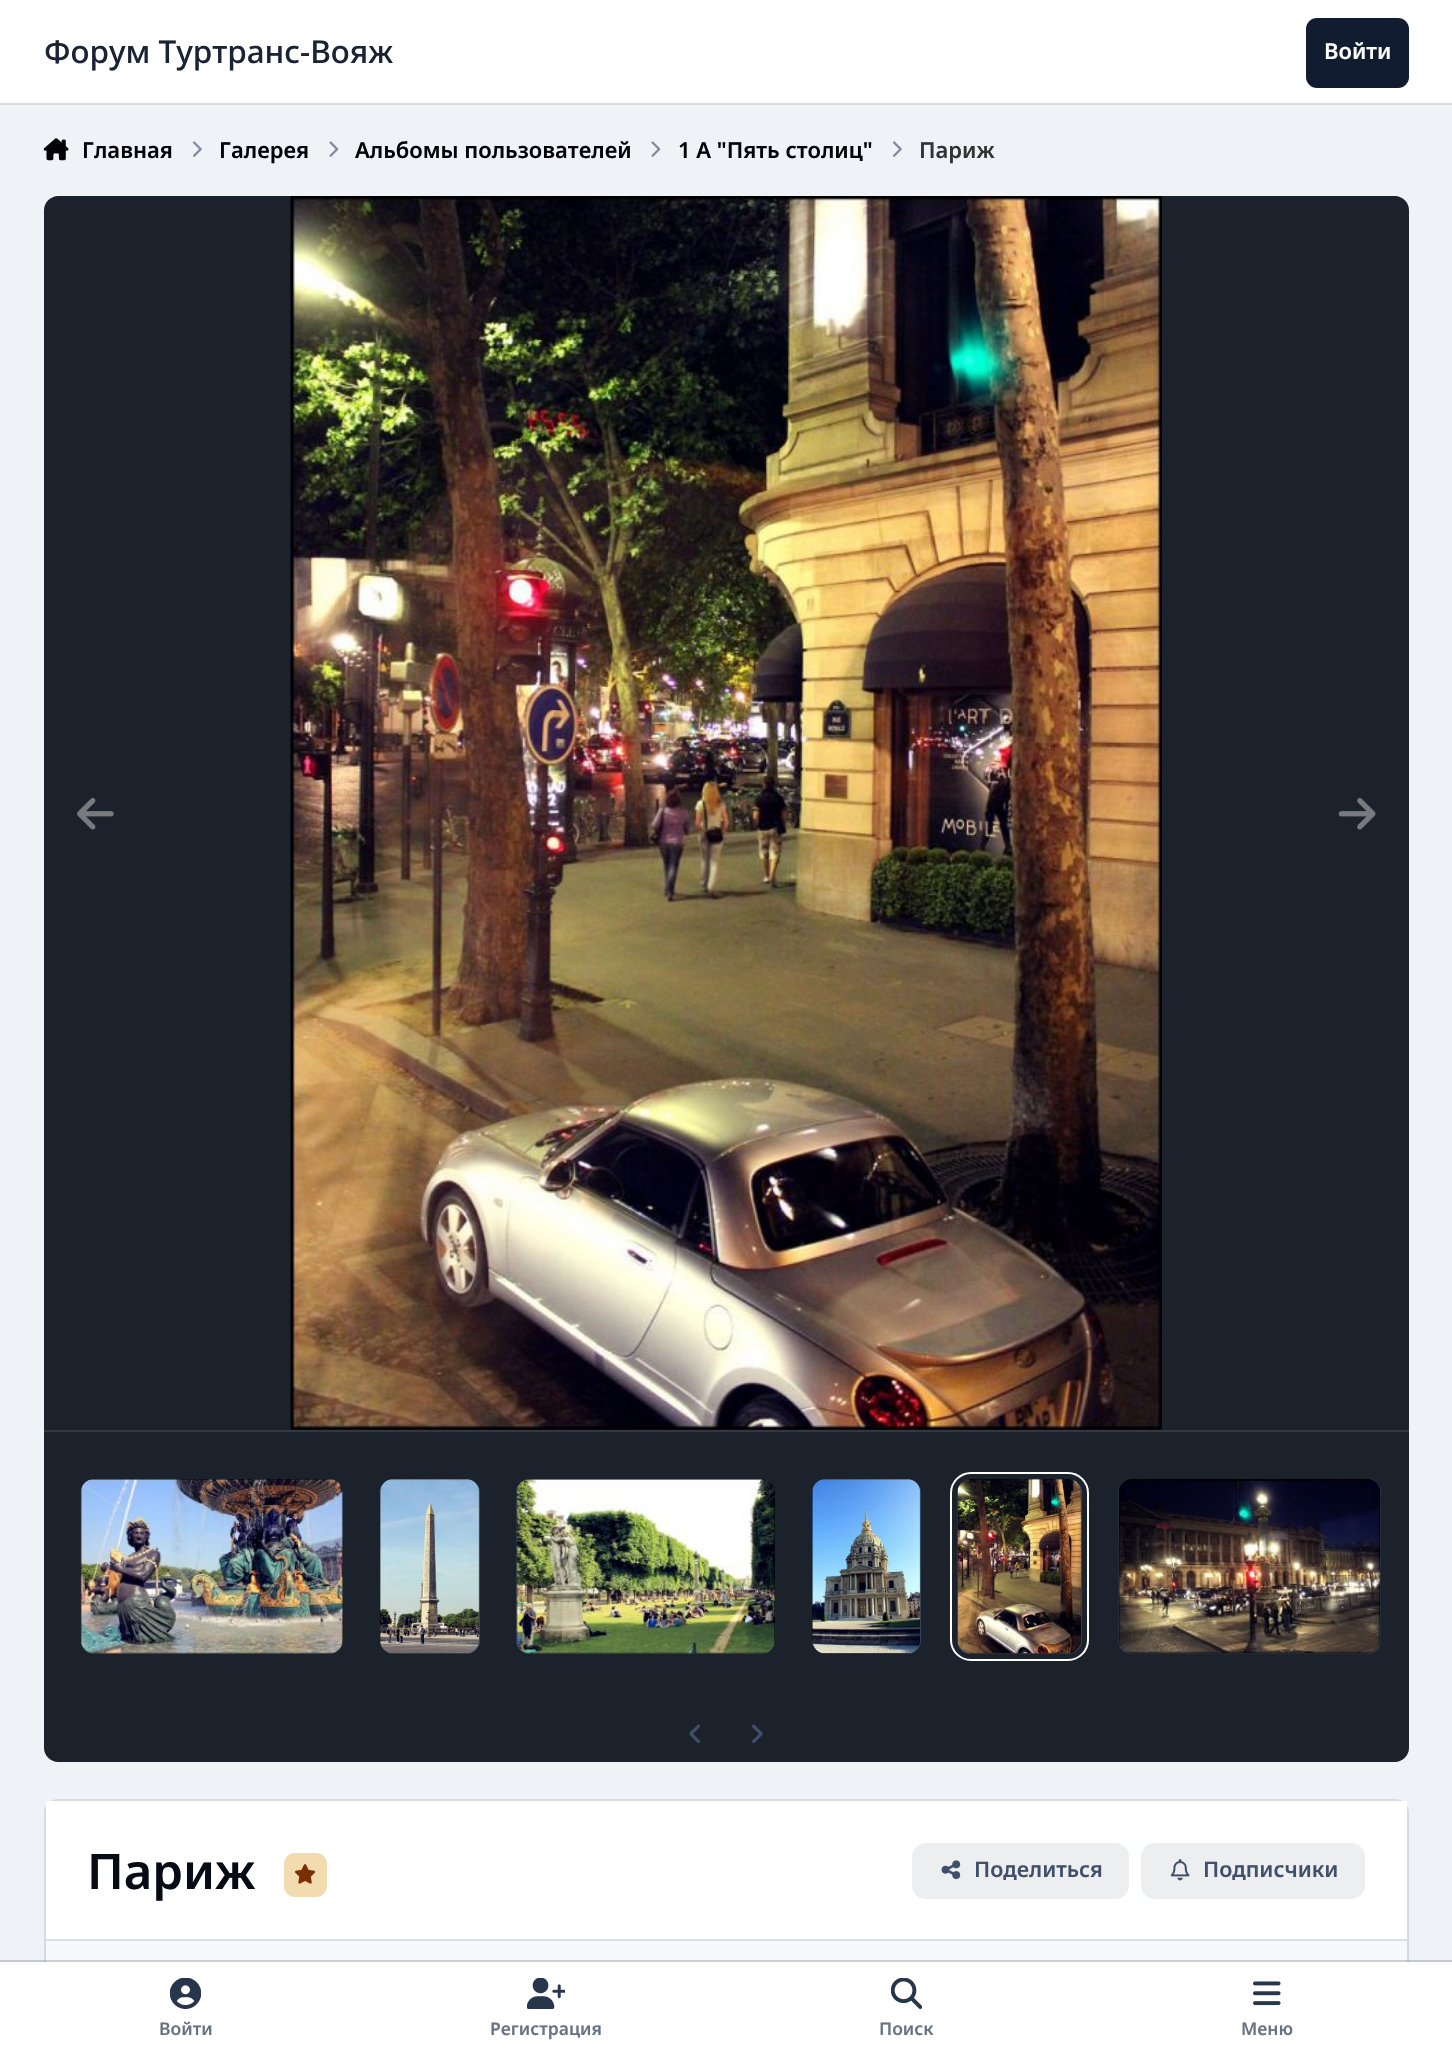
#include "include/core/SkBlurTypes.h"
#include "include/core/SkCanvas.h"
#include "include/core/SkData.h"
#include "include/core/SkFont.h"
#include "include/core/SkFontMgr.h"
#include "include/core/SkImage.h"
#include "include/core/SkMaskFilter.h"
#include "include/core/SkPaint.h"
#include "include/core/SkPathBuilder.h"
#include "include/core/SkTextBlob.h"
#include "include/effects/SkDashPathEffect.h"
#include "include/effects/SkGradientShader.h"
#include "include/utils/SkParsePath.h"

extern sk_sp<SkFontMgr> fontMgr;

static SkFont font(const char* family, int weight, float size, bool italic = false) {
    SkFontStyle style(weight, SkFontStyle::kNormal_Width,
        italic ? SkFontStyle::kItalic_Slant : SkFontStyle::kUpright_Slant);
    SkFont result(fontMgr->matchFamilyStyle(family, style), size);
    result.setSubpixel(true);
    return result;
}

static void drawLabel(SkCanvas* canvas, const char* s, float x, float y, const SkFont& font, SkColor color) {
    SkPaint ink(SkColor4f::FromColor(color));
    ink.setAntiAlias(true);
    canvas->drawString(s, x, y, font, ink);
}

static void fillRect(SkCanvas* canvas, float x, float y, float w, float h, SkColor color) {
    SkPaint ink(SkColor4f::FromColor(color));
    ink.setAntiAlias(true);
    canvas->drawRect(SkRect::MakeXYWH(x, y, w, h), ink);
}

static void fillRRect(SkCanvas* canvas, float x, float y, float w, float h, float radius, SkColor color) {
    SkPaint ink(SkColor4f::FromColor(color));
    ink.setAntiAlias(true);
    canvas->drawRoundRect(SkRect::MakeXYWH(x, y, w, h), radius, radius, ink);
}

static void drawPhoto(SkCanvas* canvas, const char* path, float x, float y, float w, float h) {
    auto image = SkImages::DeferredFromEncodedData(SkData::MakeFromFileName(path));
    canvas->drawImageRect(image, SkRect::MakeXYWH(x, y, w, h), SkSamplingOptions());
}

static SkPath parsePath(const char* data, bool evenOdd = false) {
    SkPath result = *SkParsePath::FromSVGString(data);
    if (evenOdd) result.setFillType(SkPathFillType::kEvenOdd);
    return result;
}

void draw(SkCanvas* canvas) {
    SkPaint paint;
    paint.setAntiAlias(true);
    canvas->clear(0xFFEFF2F7);
    fillRect(canvas, 0, 0, 1452, 103, 0xFFFFFFFF);
    fillRect(canvas, 0, 103, 1452, 2, 0xFFDADADC);
    SkFont font1 = font("Noto Sans", 500, 31.5f);
    drawLabel(canvas, "Форум Туртранс-Вояж", 44, 63, font1, 0xFF1B2434);
    fillRRect(canvas, 1306, 18, 103, 70, 11, 0xFF111C31);
    SkFont font2 = font("Noto Sans", 600, 22);
    drawLabel(canvas, "Войти", 1324, 59, font2, 0xFFFFFFFF);
    drawPhoto(canvas, "assets/img1.png", 43, 138, 26, 23);
    drawLabel(canvas, "Главная", 82, 158, font2, 0xFF020305);
    drawPhoto(canvas, "assets/img2.png", 193, 141, 9, 16);
    drawLabel(canvas, "Галерея", 219, 158, font2, 0xFF020305);
    drawPhoto(canvas, "assets/img3.png", 329, 141, 10, 16);
    drawLabel(canvas, "Альбомы пользователей", 355, 158, font2, 0xFF020305);
    drawPhoto(canvas, "assets/img3.png", 651, 141, 10, 16);
    drawLabel(canvas, "1 А \"Пять столиц\"", 678, 158, font2, 0xFF020305);
    drawPhoto(canvas, "assets/img2.png", 893, 141, 9, 16);
    drawLabel(canvas, "Париж", 919, 158, font2, 0xFF313335);
    paint.setColor(0xFF1C222B);
    canvas->drawPath(parsePath("M58 196H1395C1402.5 196 1409 202.5 1409 210V1430H44V210C44 202.5 50.5 196 58 196Z"), paint);
    drawPhoto(canvas, "assets/img4.png", 290, 196, 872, 1234);
    drawPhoto(canvas, "assets/img5.png", 77, 798, 37, 32);
    drawPhoto(canvas, "assets/img6.png", 1338, 798, 38, 32);
    canvas->drawPath(parsePath("M44 1430H1409V1748C1409 1755.5 1402.5 1762 1395 1762H58C50.5 1762 44 1755.5 44 1748Z"), paint);
    fillRect(canvas, 44, 1430, 1365, 2, 0xFF333840);
    fillRRect(canvas, 81, 1479, 262, 175, 14, 0xFF384862);
    drawPhoto(canvas, "assets/img7.png", 80, 1479, 263, 175);
    fillRRect(canvas, 380, 1479, 100, 175, 14, 0xFF384862);
    drawPhoto(canvas, "assets/img8.png", 380, 1479, 100, 175);
    fillRRect(canvas, 516, 1479, 259, 175, 14, 0xFF384862);
    drawPhoto(canvas, "assets/img9.png", 516, 1479, 259, 175);
    fillRRect(canvas, 812, 1479, 109, 175, 14, 0xFF384862);
    drawPhoto(canvas, "assets/img10.png", 812, 1479, 109, 175);
    fillRRect(canvas, 957, 1479, 125, 175, 14, 0xFF384862);
    paint.setStroke(true);
    paint.setStrokeWidth(2);
    paint.setColor(0xFFFFFFFF);
    canvas->drawRoundRect(SkRect::MakeXYWH(951, 1473, 137, 187), 20, 20, paint);
    drawPhoto(canvas, "assets/img11.png", 957, 1479, 125, 175);
    fillRRect(canvas, 1118, 1479, 263, 175, 14, 0xFF384862);
    drawPhoto(canvas, "assets/img12.png", 1118, 1479, 263, 175);
    drawPhoto(canvas, "assets/img13.png", 689, 1724, 11, 19);
    drawPhoto(canvas, "assets/img14.png", 752, 1724, 11, 19);
    paint.setColor(0xFFD5DBE6);
    canvas->drawRoundRect(SkRect::MakeXYWH(45, 1800, 1363, 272), 13, 13, paint);
    fillRect(canvas, 46, 1801, 1361, 138, 0xFFFFFFFF);
    SkFont font3 = font("Noto Sans", 600, 49);
    drawLabel(canvas, "Париж", 87, 1889, font3, 0xFF060B14);
    fillRRect(canvas, 284, 1853, 43, 44, 11, 0xFFF3DBB0);
    drawPhoto(canvas, "assets/img15.png", 295, 1864, 21, 20);
    fillRRect(canvas, 912, 1843, 217, 56, 14, 0xFFECEEF0);
    drawPhoto(canvas, "assets/img16.png", 941, 1860, 20, 20);
    SkFont font4 = font("Noto Sans", 600, 21.5f);
    drawLabel(canvas, "Поделиться", 974, 1877, font4, 0xFF40506B);
    fillRRect(canvas, 1141, 1843, 224, 56, 14, 0xFFECEEF0);
    drawPhoto(canvas, "assets/img17.png", 1170, 1859, 20, 22);
    drawLabel(canvas, "Подписчики", 1203, 1877, font4, 0xFF40506B);
    fillRect(canvas, 46, 1941, 1361, 21, 0xFFF7F8FB);
    fillRect(canvas, 46, 1939, 1361, 2, 0xFFD7DFEA);
    paint.setStroke(false);
    paint.setColor(0x4040506B);
    canvas->drawPath(parsePath("M0 1960V1962H1452V2056H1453V1960Z"), paint);
    fillRect(canvas, 0, 1962, 1452, 95, 0xFFFFFFFF);
    drawPhoto(canvas, "assets/img18.png", 170, 1978, 31, 31);
    SkFont font5 = font("Noto Sans", 600, 17.5f);
    drawLabel(canvas, "Войти", 159, 2035, font5, 0xFF697282);
    drawPhoto(canvas, "assets/img19.png", 527, 1978, 38, 31);
    drawLabel(canvas, "Регистрация", 490, 2035, font5, 0xFF697282);
    drawPhoto(canvas, "assets/img20.png", 891, 1978, 31, 31);
    drawLabel(canvas, "Поиск", 879, 2035, font5, 0xFF697282);
    drawPhoto(canvas, "assets/img21.png", 1253, 1981, 28, 25);
    drawLabel(canvas, "Меню", 1241, 2035, font5, 0xFF697282);
}
